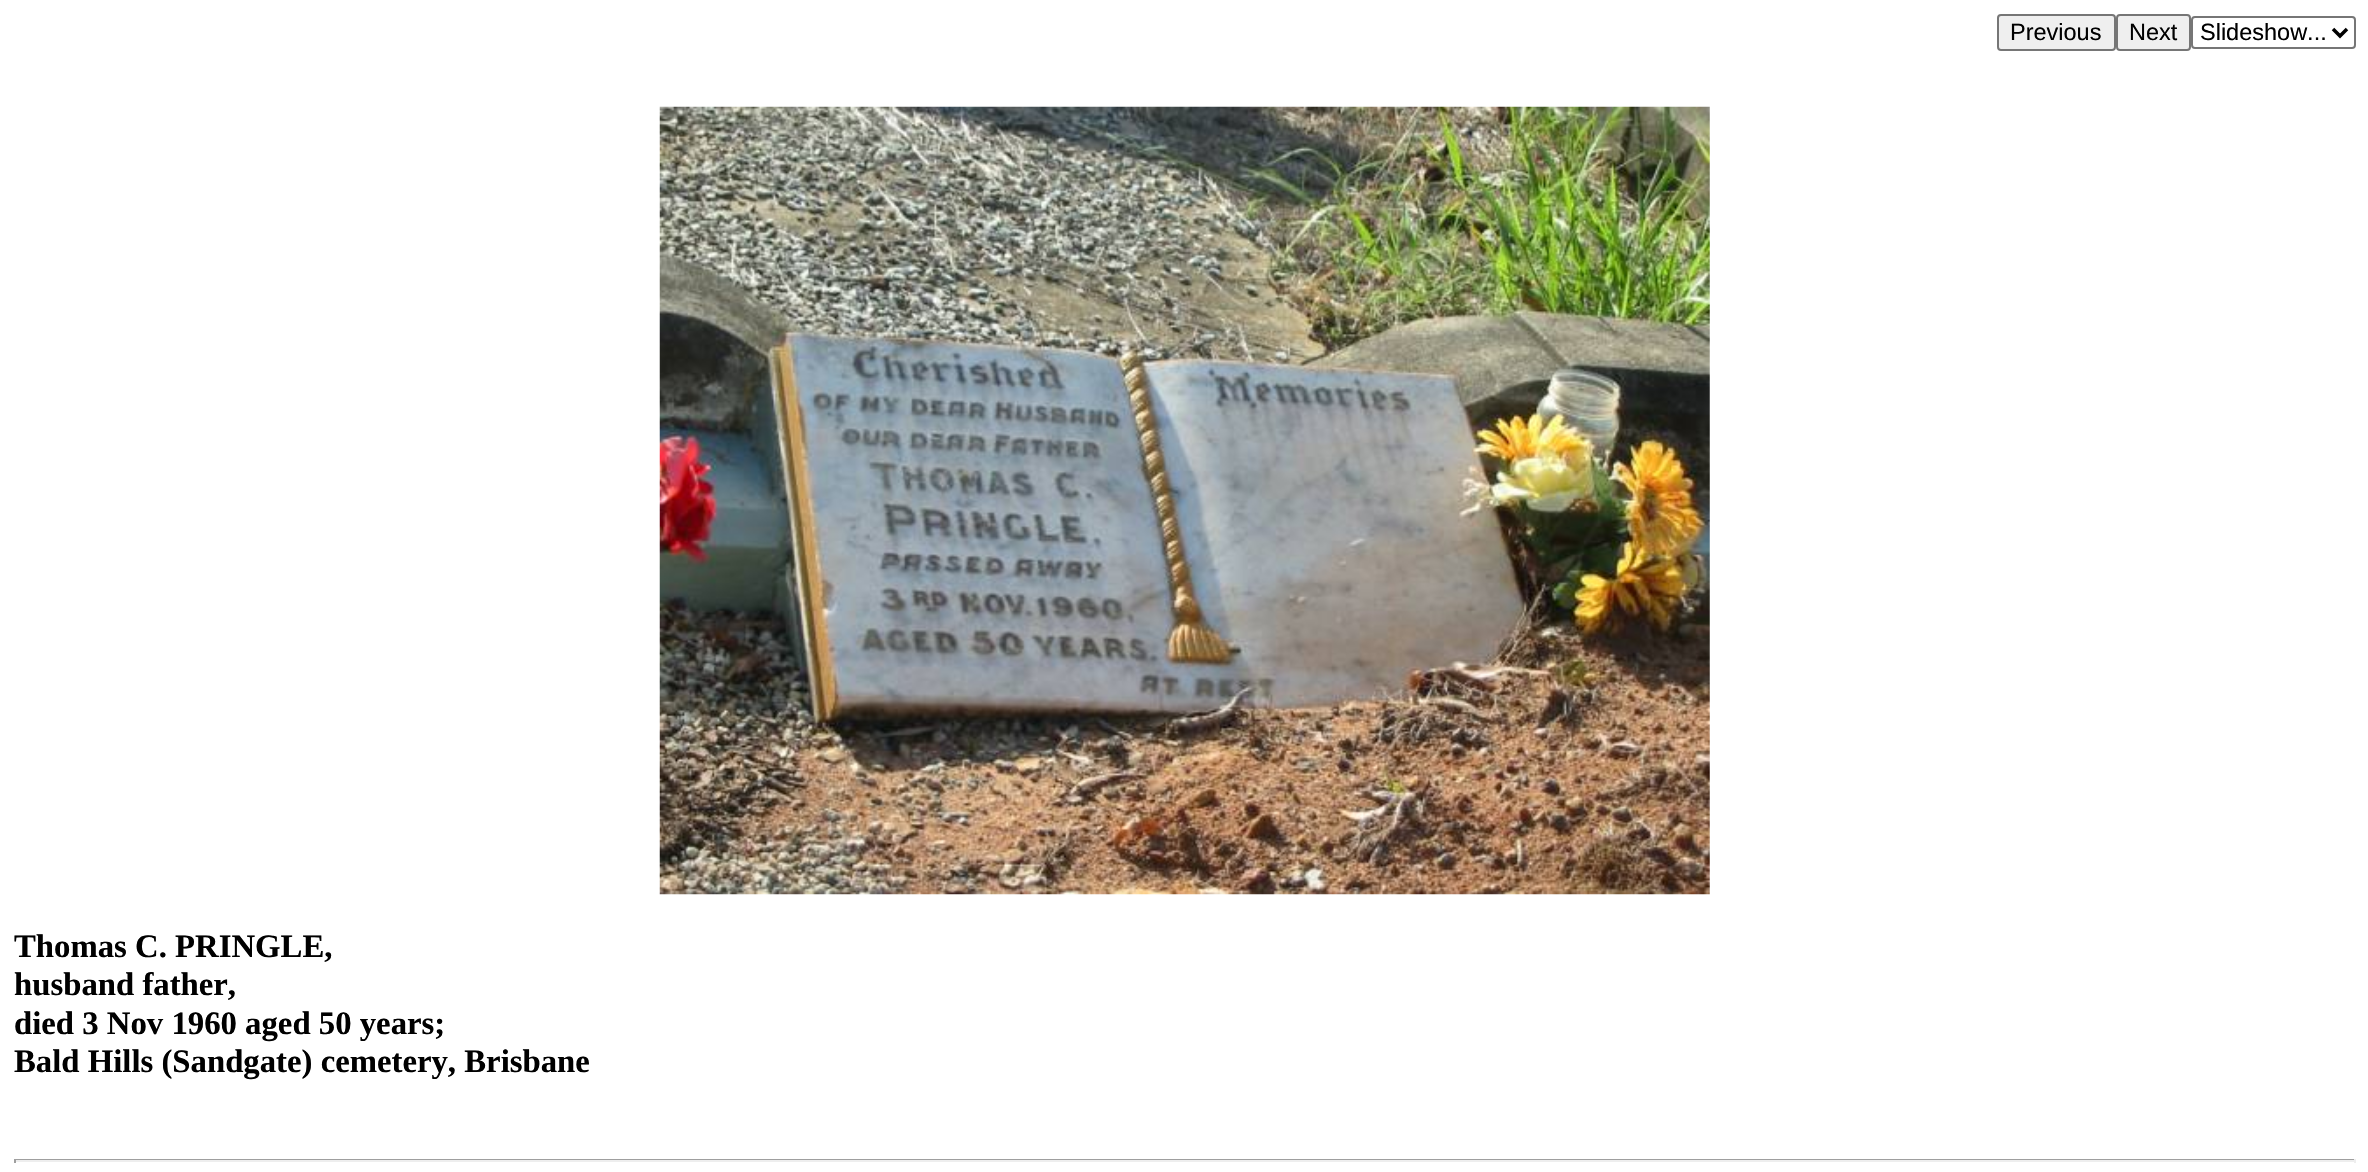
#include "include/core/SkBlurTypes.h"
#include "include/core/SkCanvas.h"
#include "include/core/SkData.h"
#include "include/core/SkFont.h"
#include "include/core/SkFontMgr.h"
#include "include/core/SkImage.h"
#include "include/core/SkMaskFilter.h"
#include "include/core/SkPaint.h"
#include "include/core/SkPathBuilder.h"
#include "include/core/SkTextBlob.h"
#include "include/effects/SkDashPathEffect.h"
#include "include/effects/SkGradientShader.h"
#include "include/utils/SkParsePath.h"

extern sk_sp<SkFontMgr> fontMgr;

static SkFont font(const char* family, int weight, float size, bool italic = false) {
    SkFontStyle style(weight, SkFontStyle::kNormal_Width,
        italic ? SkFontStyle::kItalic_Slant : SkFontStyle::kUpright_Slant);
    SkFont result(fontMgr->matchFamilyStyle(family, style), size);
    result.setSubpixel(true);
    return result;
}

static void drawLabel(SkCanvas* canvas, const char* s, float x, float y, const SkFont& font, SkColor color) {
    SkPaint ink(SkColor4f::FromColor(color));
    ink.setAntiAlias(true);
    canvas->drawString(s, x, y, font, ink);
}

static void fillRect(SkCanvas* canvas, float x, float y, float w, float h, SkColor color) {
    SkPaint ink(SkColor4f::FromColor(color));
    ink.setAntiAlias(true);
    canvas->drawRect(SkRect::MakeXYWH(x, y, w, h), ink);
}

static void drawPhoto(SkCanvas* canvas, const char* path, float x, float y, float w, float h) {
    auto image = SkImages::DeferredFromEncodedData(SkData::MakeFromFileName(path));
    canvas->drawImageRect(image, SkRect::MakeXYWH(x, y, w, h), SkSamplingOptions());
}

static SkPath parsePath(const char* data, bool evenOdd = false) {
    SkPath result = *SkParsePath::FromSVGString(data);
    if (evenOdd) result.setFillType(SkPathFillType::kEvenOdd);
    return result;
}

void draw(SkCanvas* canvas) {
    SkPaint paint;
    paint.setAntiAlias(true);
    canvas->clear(0xFFFFFFFF);
    paint.setColor(0xFFEFEFEF);
    canvas->drawRoundRect(SkRect::MakeXYWH(1998, 15, 117, 35), 3, 3, paint);
    paint.setStroke(true);
    paint.setStrokeWidth(2);
    paint.setColor(0xFF767676);
    canvas->drawRoundRect(SkRect::MakeXYWH(1998, 15, 117, 35), 3, 3, paint);
    SkFont font1 = font("Liberation Sans", 400, 23.5f);
    drawLabel(canvas, "Previous", 2010, 40, font1, 0xFF000000);
    paint.setStroke(false);
    paint.setColor(0xFFEFEFEF);
    canvas->drawRoundRect(SkRect::MakeXYWH(2117, 15, 73, 35), 3, 3, paint);
    paint.setStroke(true);
    paint.setColor(0xFF767676);
    canvas->drawRoundRect(SkRect::MakeXYWH(2117, 15, 73, 35), 3, 3, paint);
    drawLabel(canvas, "Next", 2129, 40, font1, 0xFF000000);
    canvas->drawRoundRect(SkRect::MakeXYWH(2192, 17, 163, 31), 3, 3, paint);
    paint.setStrokeWidth(3.5f);
    paint.setColor(0xFF000000);
    canvas->drawPath(parsePath("M2333 29L2340 36L2347 29"), paint);
    drawLabel(canvas, "Slideshow...", 2200, 40, font1, 0xFF000000);
    drawPhoto(canvas, "assets/img1.png", 659, 106, 1051, 789);
    SkFont font2 = font("Liberation Serif", 700, 32.75f);
    drawLabel(canvas, "Thomas C. PRINGLE,", 14, 957, font2, 0xFF000000);
    drawLabel(canvas, "husband father,", 14, 995, font2, 0xFF000000);
    drawLabel(canvas, "died 3 Nov 1960 aged 50 years;", 14, 1034, font2, 0xFF000000);
    drawLabel(canvas, "Bald Hills (Sandgate) cemetery, Brisbane", 14, 1072, font2, 0xFF000000);
    fillRect(canvas, 14, 1159, 2342, 1, 0xFF9F9F9F);
    fillRect(canvas, 2354, 1159, 2, 4, 0xFFEEEEEE);
    fillRect(canvas, 14, 1160, 2342, 2, 0xFFEEEEEE);
    fillRect(canvas, 14, 1159, 2, 4, 0xFF9F9F9F);
}
